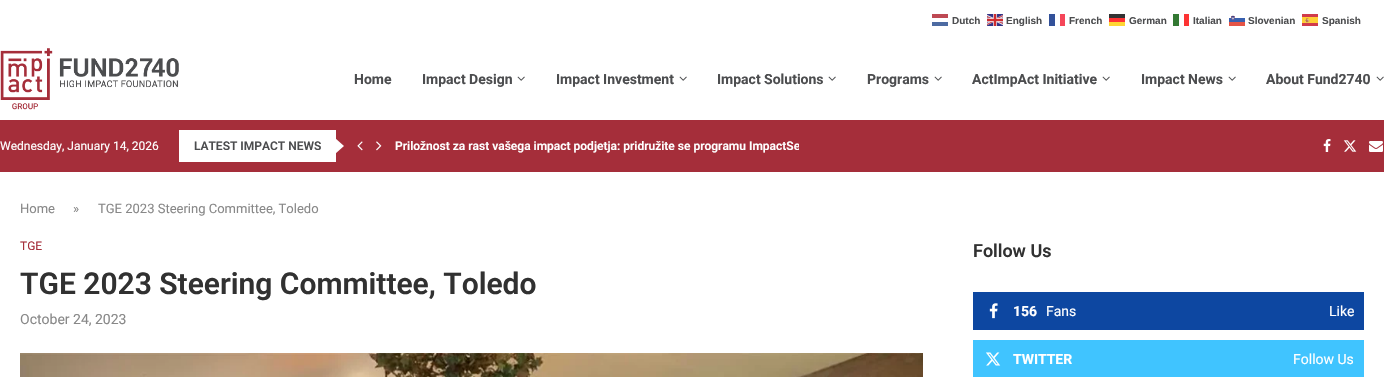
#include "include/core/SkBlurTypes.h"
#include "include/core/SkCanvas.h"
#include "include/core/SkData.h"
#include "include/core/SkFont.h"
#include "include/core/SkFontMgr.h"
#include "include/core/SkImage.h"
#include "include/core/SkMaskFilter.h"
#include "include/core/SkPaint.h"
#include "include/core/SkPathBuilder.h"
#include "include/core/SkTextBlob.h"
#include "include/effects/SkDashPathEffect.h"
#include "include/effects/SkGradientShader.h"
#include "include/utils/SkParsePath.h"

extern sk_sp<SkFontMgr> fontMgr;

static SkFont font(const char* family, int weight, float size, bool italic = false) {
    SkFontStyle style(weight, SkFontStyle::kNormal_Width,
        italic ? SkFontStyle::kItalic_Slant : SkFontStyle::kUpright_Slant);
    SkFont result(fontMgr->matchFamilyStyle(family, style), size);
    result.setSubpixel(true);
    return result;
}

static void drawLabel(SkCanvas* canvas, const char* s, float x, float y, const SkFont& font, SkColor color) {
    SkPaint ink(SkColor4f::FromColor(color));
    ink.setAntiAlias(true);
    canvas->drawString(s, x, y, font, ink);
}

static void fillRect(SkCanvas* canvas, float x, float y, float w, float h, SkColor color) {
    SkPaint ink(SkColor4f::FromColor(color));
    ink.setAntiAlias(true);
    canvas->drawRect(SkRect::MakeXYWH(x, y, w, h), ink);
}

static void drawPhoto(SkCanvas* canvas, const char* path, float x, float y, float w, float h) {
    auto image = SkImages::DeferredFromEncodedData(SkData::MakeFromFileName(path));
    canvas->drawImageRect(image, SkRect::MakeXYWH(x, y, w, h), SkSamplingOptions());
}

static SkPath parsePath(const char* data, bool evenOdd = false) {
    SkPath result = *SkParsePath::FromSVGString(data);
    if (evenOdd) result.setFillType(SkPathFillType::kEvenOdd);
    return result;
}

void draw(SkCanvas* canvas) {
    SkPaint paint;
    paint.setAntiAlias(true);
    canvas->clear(0xFFFFFFFF);
    SkFont font1 = font("Liberation Sans", 700, 10);
    drawLabel(canvas, "Dutch", 952, 24, font1, 0xFF4C4D4F);
    fillRect(canvas, 932, 22, 16, 4, 0xFF4D6BA2);
    fillRect(canvas, 932, 14, 16, 4, 0xFFBE4953);
    drawPhoto(canvas, "assets/img1.png", 987, 14, 16, 12);
    drawLabel(canvas, "English", 1006, 24, font1, 0xFF4C4D4F);
    drawLabel(canvas, "French", 1069, 24, font1, 0xFF4C4D4F);
    fillRect(canvas, 1049, 14, 6, 12, 0xFF335199);
    fillRect(canvas, 1060, 14, 5, 12, 0xFFF54659);
    drawLabel(canvas, "German", 1129, 24, font1, 0xFF4C4D4F);
    fillRect(canvas, 1109, 22, 16, 4, 0xFFFFD633);
    fillRect(canvas, 1109, 14, 16, 4, 0xFF333333);
    fillRect(canvas, 1109, 18, 16, 4, 0xFFFF3333);
    drawLabel(canvas, "Italian", 1193, 24, font1, 0xFF4C4D4F);
    fillRect(canvas, 1173, 14, 6, 12, 0xFF337933);
    fillRect(canvas, 1184, 14, 5, 12, 0xFFFD3333);
    drawPhoto(canvas, "assets/img2.png", 1229, 15, 16, 11);
    drawLabel(canvas, "Slovenian", 1248, 24, font1, 0xFF4C4D4F);
    drawPhoto(canvas, "assets/img3.png", 1302, 14, 16, 12);
    drawLabel(canvas, "Spanish", 1322, 24, font1, 0xFF4C4D4F);
    drawPhoto(canvas, "assets/img4.png", 0, 48, 179, 62);
    SkFont font2 = font("Roboto", 700, 14);
    drawLabel(canvas, "Home", 354, 84, font2, 0xFF4C4D4F);
    drawLabel(canvas, "Impact Design", 422, 84, font2, 0xFF4C4D4F);
    drawPhoto(canvas, "assets/img5.png", 517, 76, 8, 5);
    drawLabel(canvas, "Impact Investment", 556, 84, font2, 0xFF4C4D4F);
    drawPhoto(canvas, "assets/img5.png", 679, 76, 8, 5);
    drawLabel(canvas, "Impact Solutions", 717, 84, font2, 0xFF4C4D4F);
    drawPhoto(canvas, "assets/img5.png", 828, 76, 8, 5);
    drawLabel(canvas, "Programs", 867, 84, font2, 0xFF4C4D4F);
    drawPhoto(canvas, "assets/img5.png", 934, 76, 8, 5);
    drawLabel(canvas, "ActImpAct Initiative", 972, 84, font2, 0xFF4C4D4F);
    drawPhoto(canvas, "assets/img5.png", 1102, 76, 8, 5);
    drawLabel(canvas, "Impact News", 1141, 84, font2, 0xFF4C4D4F);
    drawPhoto(canvas, "assets/img5.png", 1228, 76, 8, 5);
    drawLabel(canvas, "About Fund2740", 1266, 84, font2, 0xFF4C4D4F);
    drawPhoto(canvas, "assets/img5.png", 1376, 76, 8, 5);
    fillRect(canvas, 0, 120, 1384, 52, 0xFFA52E3A);
    SkFont font3 = font("Roboto", 400, 12);
    drawLabel(canvas, "Wednesday, January 14, 2026", 0, 150, font3, 0xFFFFFFFF);
    fillRect(canvas, 179, 130, 157, 32, 0xFFFFFFFF);
    SkFont font4 = font("Roboto", 600, 12);
    drawLabel(canvas, "LATEST IMPACT NEWS", 194, 150, font4, 0xFF4C4D4F);
    paint.setColor(0xFFFFFFFF);
    canvas->drawPath(parsePath("M335 154V138L344 146Z"), paint);
    drawPhoto(canvas, "assets/img6.png", 357, 141, 6, 10);
    drawPhoto(canvas, "assets/img7.png", 376, 141, 6, 10);
    canvas->save();
    canvas->clipRect(SkRect::MakeXYWH(395, 130, 404, 32));
    drawLabel(canvas, "Priložnost za rast vašega impact podjetja: pridružite se programu ImpactSe", 395, 150, font4, 0xFFFFFFFF);
    canvas->restore();
    drawPhoto(canvas, "assets/img8.png", 1323, 139, 8, 13);
    drawPhoto(canvas, "assets/img9.png", 1343, 140, 14, 12);
    drawPhoto(canvas, "assets/img10.png", 1369, 141, 14, 11);
    SkFont font5 = font("Roboto", 400, 13);
    drawLabel(canvas, "Home", 20, 213, font5, 0xFF888888);
    drawLabel(canvas, "»", 73, 213, font5, 0xFF888888);
    drawLabel(canvas, "TGE 2023 Steering Committee, Toledo", 98, 213, font5, 0xFF888888);
    drawLabel(canvas, "TGE", 20, 250, font3, 0xFFA52E3A);
    SkFont font6 = font("Roboto", 600, 30);
    drawLabel(canvas, "TGE 2023 Steering Committee, Toledo", 20, 294, font6, 0xFF313131);
    SkFont font7 = font("Roboto", 400, 14);
    drawLabel(canvas, "October 24, 2023", 20, 324, font7, 0xFF888888);
    drawPhoto(canvas, "assets/img11.png", 20, 353, 903, 24);
    SkFont font8 = font("Roboto", 600, 18);
    drawLabel(canvas, "Follow Us", 973, 257, font8, 0xFF313131);
    fillRect(canvas, 973, 292, 391, 38, 0xFF0D47A1);
    drawPhoto(canvas, "assets/img12.png", 989, 303, 9, 16);
    drawLabel(canvas, "156", 1013, 316, font2, 0xFFFFFFFF);
    drawLabel(canvas, "Fans", 1046, 316, font7, 0xFFFFFFFF);
    drawLabel(canvas, "Like", 1329, 316, font7, 0xFFFFFFFF);
    fillRect(canvas, 973, 340, 391, 37, 0xFF40C4FF);
    drawPhoto(canvas, "assets/img13.png", 986, 352, 15, 14);
    drawLabel(canvas, "TWITTER", 1013, 364, font2, 0xFFFFFFFF);
    drawLabel(canvas, "Follow Us", 1293, 364, font7, 0xFFFFFFFF);
}
